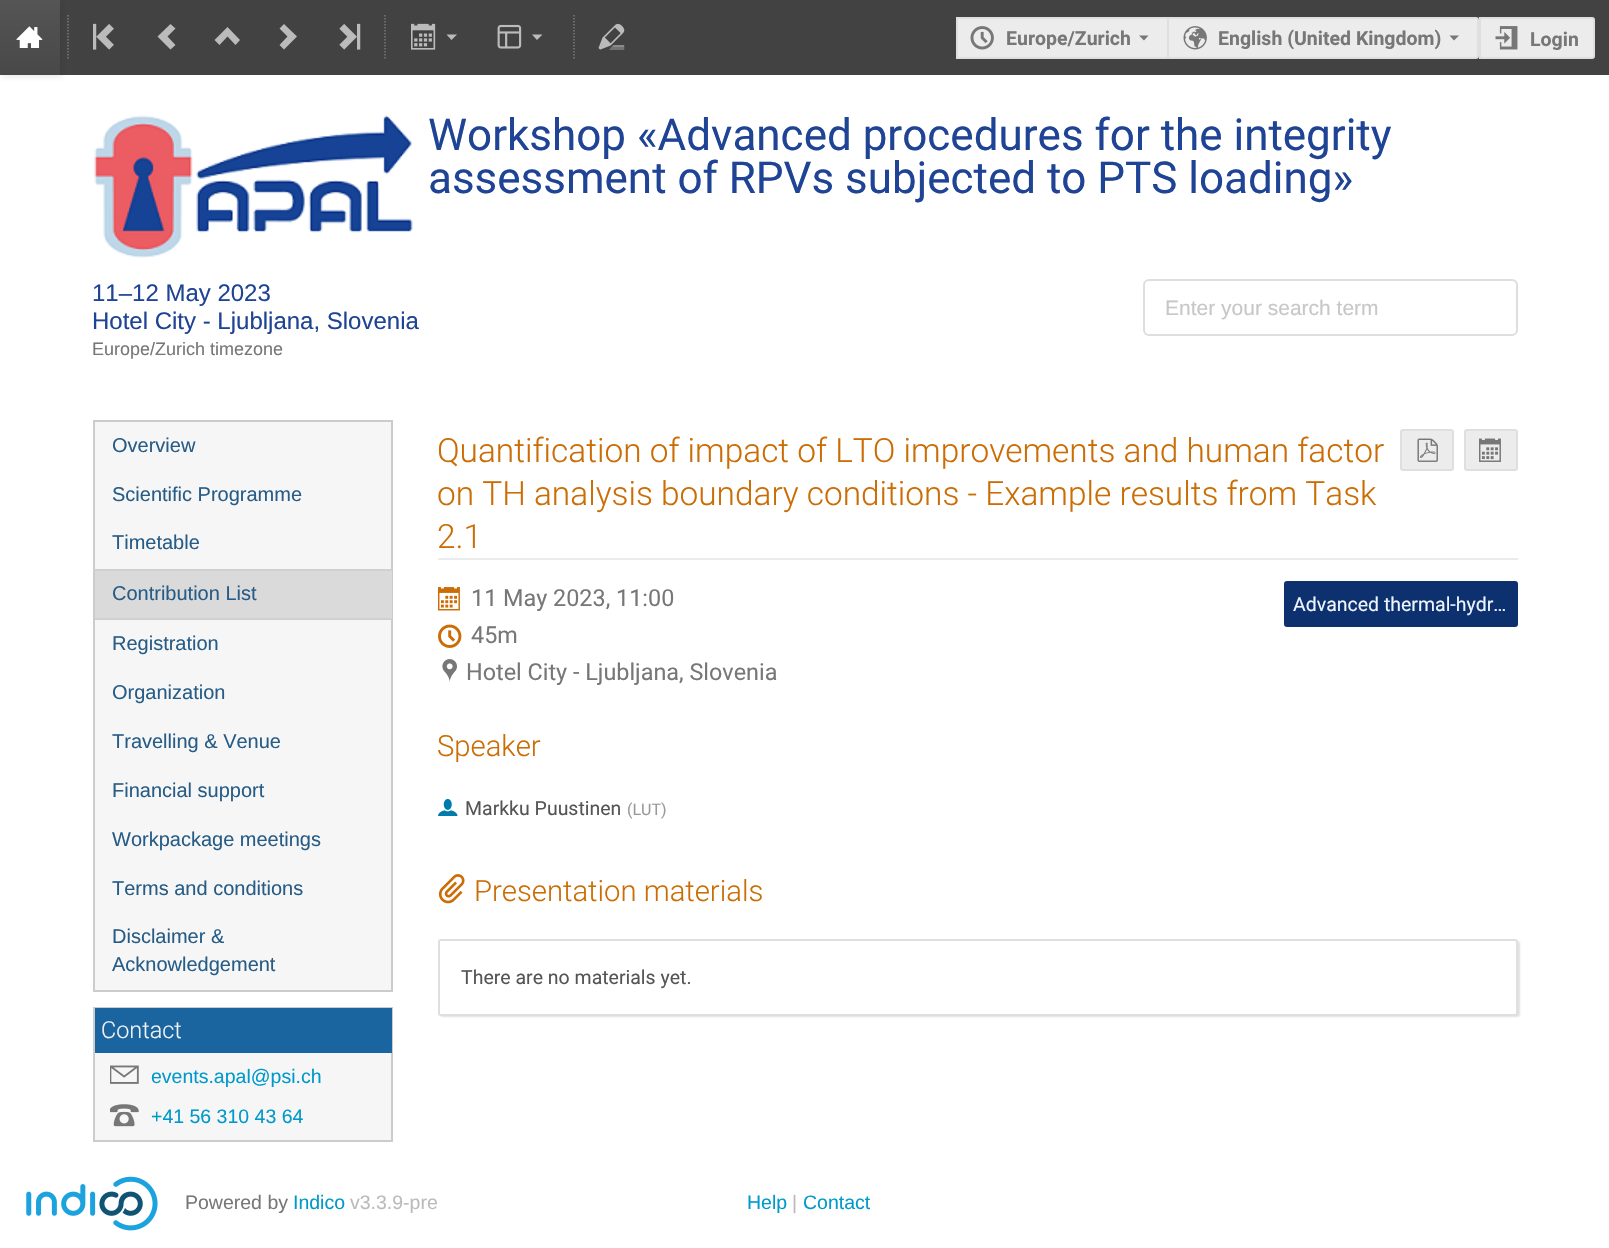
#include "include/core/SkBlurTypes.h"
#include "include/core/SkCanvas.h"
#include "include/core/SkData.h"
#include "include/core/SkFont.h"
#include "include/core/SkFontMgr.h"
#include "include/core/SkImage.h"
#include "include/core/SkMaskFilter.h"
#include "include/core/SkPaint.h"
#include "include/core/SkPathBuilder.h"
#include "include/core/SkTextBlob.h"
#include "include/effects/SkDashPathEffect.h"
#include "include/effects/SkGradientShader.h"
#include "include/utils/SkParsePath.h"

extern sk_sp<SkFontMgr> fontMgr;

static SkFont font(const char* family, int weight, float size, bool italic = false) {
    SkFontStyle style(weight, SkFontStyle::kNormal_Width,
        italic ? SkFontStyle::kItalic_Slant : SkFontStyle::kUpright_Slant);
    SkFont result(fontMgr->matchFamilyStyle(family, style), size);
    result.setSubpixel(true);
    return result;
}

static void drawLabel(SkCanvas* canvas, const char* s, float x, float y, const SkFont& font, SkColor color) {
    SkPaint ink(SkColor4f::FromColor(color));
    ink.setAntiAlias(true);
    canvas->drawString(s, x, y, font, ink);
}

static void fillRect(SkCanvas* canvas, float x, float y, float w, float h, SkColor color) {
    SkPaint ink(SkColor4f::FromColor(color));
    ink.setAntiAlias(true);
    canvas->drawRect(SkRect::MakeXYWH(x, y, w, h), ink);
}

static void fillRRect(SkCanvas* canvas, float x, float y, float w, float h, float radius, SkColor color) {
    SkPaint ink(SkColor4f::FromColor(color));
    ink.setAntiAlias(true);
    canvas->drawRoundRect(SkRect::MakeXYWH(x, y, w, h), radius, radius, ink);
}

static void drawPhoto(SkCanvas* canvas, const char* path, float x, float y, float w, float h) {
    auto image = SkImages::DeferredFromEncodedData(SkData::MakeFromFileName(path));
    canvas->drawImageRect(image, SkRect::MakeXYWH(x, y, w, h), SkSamplingOptions());
}

static SkPath parsePath(const char* data, bool evenOdd = false) {
    SkPath result = *SkParsePath::FromSVGString(data);
    if (evenOdd) result.setFillType(SkPathFillType::kEvenOdd);
    return result;
}

void draw(SkCanvas* canvas) {
    SkPaint paint;
    paint.setAntiAlias(true);
    canvas->clear(0xFFFFFFFF);
    fillRect(canvas, 60, 0, 1549, 75, 0xFF424242);
    paint.setColor(0x1A141414);
    paint.setMaskFilter(SkMaskFilter::MakeBlur(kNormal_SkBlurStyle, 3));
    canvas->drawRect(SkRect::MakeXYWH(2, 2, 60, 75), paint);
    paint.setMaskFilter(nullptr);
    {
        const SkColor colors[] = {0xFF555555, 0xFF484848};
        const float stops[] = {0, 1};
        const SkPoint ends[] = {{30, 0}, {30, 75}};
        paint.setShader(SkGradientShader::MakeLinear(ends, colors, stops, 2, SkTileMode::kClamp));
        paint.setAlpha(255);
    }
    canvas->drawRect(SkRect::MakeXYWH(0, 0, 60, 75), paint);
    drawPhoto(canvas, "assets/img1.png", 16, 26, 27, 22);
    paint.setStroke(true);
    paint.setStrokeWidth(1.5f);
    paint.setShader(nullptr);
    paint.setColor(0xFF777777);
    paint.setPathEffect(SkDashPathEffect::Make({{1.5f, 1.5f}}, 0));
    canvas->drawPath(parsePath("M68 15V60"), paint);
    paint.setPathEffect(nullptr);
    drawPhoto(canvas, "assets/img2.png", 93, 23, 21, 27);
    paint.setStroke(false);
    paint.setColor(0xFFBBBBBB);
    canvas->drawPath(parsePath("M170.5 49.5L175.5 45L167.5 36.5L175.5 28.5L170.5 24L157.5 36.5Z"), paint);
    canvas->drawPath(parsePath("M214.5 40L219.5 45L227.5 36.5L235.5 45L240 40L227.5 27Z"), paint);
    canvas->drawPath(parsePath("M284 24L279.5 28.5L287.5 36.5L279.5 45L284 49.5L297 36.5Z"), paint);
    drawPhoto(canvas, "assets/img3.png", 339, 23, 22, 27);
    paint.setStroke(true);
    paint.setColor(0xFF777777);
    paint.setPathEffect(SkDashPathEffect::Make({{1.5f, 1.5f}}, 0));
    canvas->drawPath(parsePath("M385 15V60"), paint);
    paint.setPathEffect(nullptr);
    drawPhoto(canvas, "assets/img4.png", 411, 23, 25, 27);
    paint.setStroke(false);
    paint.setColor(0xFFBBBBBB);
    canvas->drawPath(parsePath("M446.5 34.5L451.5 40L457 34.5Z"), paint);
    drawPhoto(canvas, "assets/img5.png", 497, 24, 25, 25);
    canvas->drawPath(parsePath("M532 34.5L537 40L542.5 34.5Z"), paint);
    paint.setStroke(true);
    paint.setColor(0xFF777777);
    paint.setPathEffect(SkDashPathEffect::Make({{1.5f, 1.5f}}, 0));
    canvas->drawPath(parsePath("M574 15V60"), paint);
    paint.setPathEffect(nullptr);
    drawPhoto(canvas, "assets/img6.png", 598, 23, 27, 27);
    fillRect(canvas, 958, 19, 209, 38, 0xFFECECEC);
    fillRect(canvas, 956, 17, 211, 2, 0xFFDFDFDF);
    fillRect(canvas, 956, 57, 211, 2, 0xFFDFDFDF);
    fillRect(canvas, 956, 17, 2, 42, 0xFFDFDFDF);
    drawPhoto(canvas, "assets/img7.png", 970, 26, 24, 24);
    SkFont font1 = font("Roboto", 700, 19.5f);
    drawLabel(canvas, "Europe/Zurich", 1006, 45, font1, 0xFF777777);
    paint.setStroke(false);
    canvas->drawPath(parsePath("M1139 35.5L1144 40.5L1148.5 35.5Z"), paint);
    paint.setColor(0xFFECECEC);
    canvas->drawPath(parsePath("M1168 18H1476C1477 18 1478 19 1478 20V56C1478 57 1477 58 1476 58H1168Z"), paint);
    paint.setStroke(true);
    paint.setStrokeWidth(2);
    paint.setColor(0xFFDFDFDF);
    canvas->drawPath(parsePath("M1168 18H1476C1477 18 1478 19 1478 20V56C1478 57 1477 58 1476 58H1168Z"), paint);
    drawPhoto(canvas, "assets/img8.png", 1183, 26, 24, 24);
    drawLabel(canvas, "English (United Kingdom)", 1218, 45, font1, 0xFF777777);
    paint.setStroke(false);
    paint.setColor(0xFF777777);
    canvas->drawPath(parsePath("M1449.5 35.5L1454 40.5L1459 35.5Z"), paint);
    paint.setColor(0xFFECECEC);
    canvas->drawPath(parsePath("M1480 18H1592C1593 18 1594 19 1594 20V56C1594 57 1593 58 1592 58H1480Z"), paint);
    paint.setStroke(true);
    paint.setColor(0xFFDFDFDF);
    canvas->drawPath(parsePath("M1480 18H1592C1593 18 1594 19 1594 20V56C1594 57 1593 58 1592 58H1480Z"), paint);
    drawPhoto(canvas, "assets/img9.png", 1495, 26, 23, 24);
    drawLabel(canvas, "Login", 1530, 46, font1, 0xFF777777);
    drawPhoto(canvas, "assets/img10.png", 94, 115, 319, 143);
    SkFont font2 = font("Roboto", 400, 44);
    drawLabel(canvas, "Workshop «Advanced procedures for the integrity", 428, 150, font2, 0xFF1F4395);
    drawLabel(canvas, "assessment of RPVs subjected to PTS loading»", 428, 193, font2, 0xFF1F4395);
    SkFont font3 = font("Liberation Sans", 400, 24);
    drawLabel(canvas, "11–12 May 2023", 92, 301, font3, 0xFF1F4395);
    drawLabel(canvas, "Hotel City - Ljubljana, Slovenia", 92, 329, font3, 0xFF1F4395);
    SkFont font4 = font("Liberation Sans", 400, 18);
    drawLabel(canvas, "Europe/Zurich timezone", 92, 355, font4, 0xFF777777);
    paint.setColor(0xFFDEDEDE);
    canvas->drawRoundRect(SkRect::MakeXYWH(1144, 280, 373, 55), 5, 5, paint);
    SkFont font5 = font("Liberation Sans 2", 400, 21);
    drawLabel(canvas, "Enter your search term", 1165, 315, font5, 0xFFC7C7C7);
    paint.setStroke(false);
    paint.setColor(0xFFF6F6F6);
    canvas->drawRect(SkRect::MakeXYWH(94, 421, 298, 570), paint);
    paint.setStroke(true);
    paint.setColor(0xFFCCCCCC);
    canvas->drawRect(SkRect::MakeXYWH(94, 421, 298, 570), paint);
    SkFont font6 = font("Liberation Sans 2", 400, 20);
    drawLabel(canvas, "Overview", 112, 452, font6, 0xFF275C86);
    drawLabel(canvas, "Scientific Programme", 112, 501, font6, 0xFF275C86);
    drawLabel(canvas, "Timetable", 112, 549, font6, 0xFF275C86);
    fillRect(canvas, 95, 571, 297, 47, 0xFFDADADA);
    fillRect(canvas, 95, 569, 297, 2, 0xFFD0D0D0);
    fillRect(canvas, 95, 618, 297, 2, 0xFFD0D0D0);
    drawLabel(canvas, "Contribution List", 112, 600, font6, 0xFF275C86);
    drawLabel(canvas, "Registration", 112, 650, font6, 0xFF275C86);
    drawLabel(canvas, "Organization", 112, 699, font6, 0xFF275C86);
    drawLabel(canvas, "Travelling & Venue", 112, 748, font6, 0xFF275C86);
    drawLabel(canvas, "Financial support", 112, 797, font6, 0xFF275C86);
    drawLabel(canvas, "Workpackage meetings", 112, 846, font6, 0xFF275C86);
    drawLabel(canvas, "Terms and conditions", 112, 895, font6, 0xFF275C86);
    drawLabel(canvas, "Disclaimer &", 112, 943, font6, 0xFF275C86);
    drawLabel(canvas, "Acknowledgement", 112, 971, font6, 0xFF275C86);
    fillRect(canvas, 95, 1053, 296, 87, 0xFFF6F6F6);
    canvas->drawRect(SkRect::MakeXYWH(94, 1008, 298, 133), paint);
    fillRect(canvas, 95, 1008, 297, 45, 0xFF1A64A0);
    SkFont font7 = font("Roboto", 300, 23.4f);
    drawLabel(canvas, "Contact", 101, 1038, font7, 0xFFF3F3F3);
    drawPhoto(canvas, "assets/img11.png", 110, 1065, 29, 19);
    SkFont font8 = font("Liberation Sans", 400, 19.5f);
    drawLabel(canvas, "events.apal@psi.ch", 151, 1083, font8, 0xFF0099CC);
    drawPhoto(canvas, "assets/img12.png", 110, 1104, 29, 23);
    drawLabel(canvas, "+41 56 310 43 64", 151, 1123, font8, 0xFF0099CC);
    fillRect(canvas, 438, 558, 1080, 2, 0xFFEBEBEB);
    SkFont font9 = font("Roboto", 300, 33.4f);
    drawLabel(canvas, "Quantification of impact of LTO improvements and human factor", 437, 462, font9, 0xFFCB6D04);
    drawLabel(canvas, "on TH analysis boundary conditions - Example results from Task", 437, 505, font9, 0xFFCB6D04);
    drawLabel(canvas, "2.1", 437, 548, font9, 0xFFCB6D04);
    paint.setStroke(false);
    paint.setColor(0xFFECECEC);
    canvas->drawRoundRect(SkRect::MakeXYWH(1401, 430, 52, 40), 2, 2, paint);
    paint.setStroke(true);
    paint.setColor(0xFFDFDFDF);
    canvas->drawRoundRect(SkRect::MakeXYWH(1401, 430, 52, 40), 2, 2, paint);
    drawPhoto(canvas, "assets/img13.png", 1417, 438, 21, 24);
    paint.setStroke(false);
    paint.setColor(0xFFECECEC);
    canvas->drawRoundRect(SkRect::MakeXYWH(1465, 430, 52, 40), 2, 2, paint);
    paint.setStroke(true);
    paint.setColor(0xFFDFDFDF);
    canvas->drawRoundRect(SkRect::MakeXYWH(1465, 430, 52, 40), 2, 2, paint);
    drawPhoto(canvas, "assets/img14.png", 1479, 438, 22, 24);
    drawPhoto(canvas, "assets/img15.png", 438, 587, 22, 24);
    SkFont font10 = font("Roboto", 400, 23.4f);
    drawLabel(canvas, "11 May 2023, 11:00", 471, 606, font10, 0xFF777777);
    drawPhoto(canvas, "assets/img16.png", 438, 624, 24, 24);
    drawLabel(canvas, "45m", 471, 643, font10, 0xFF777777);
    drawPhoto(canvas, "assets/img17.png", 442, 659, 15, 23);
    drawLabel(canvas, "Hotel City - Ljubljana, Slovenia", 466, 680, font10, 0xFF777777);
    fillRRect(canvas, 1284, 581, 234, 46, 3, 0xFF0D316F);
    SkFont font11 = font("Roboto", 400, 19.5f);
    drawLabel(canvas, "Advanced thermal-hydr…", 1293, 611, font11, 0xFFEFF5FF);
    SkFont font12 = font("Roboto", 300, 29.25f);
    drawLabel(canvas, "Speaker", 437, 756, font12, 0xFFCB6D04);
    drawPhoto(canvas, "assets/img18.png", 438, 798, 20, 18);
    drawLabel(canvas, "Markku Puustinen", 465, 815, font11, 0xFF555555);
    SkFont font13 = font("Roboto", 400, 16);
    drawLabel(canvas, "(LUT)", 627, 815, font13, 0xFF999999);
    drawPhoto(canvas, "assets/img19.png", 438, 874, 27, 30);
    drawLabel(canvas, "Presentation materials", 474, 901, font12, 0xFFCB6D04);
    paint.setStroke(false);
    paint.setColor(0xFFE1E1E1);
    paint.setMaskFilter(SkMaskFilter::MakeBlur(kNormal_SkBlurStyle, 1));
    canvas->drawRoundRect(SkRect::MakeXYWH(440, 941, 1080, 76), 3, 3, paint);
    paint.setMaskFilter(nullptr);
    paint.setColor(0xFFFFFFFF);
    canvas->drawRoundRect(SkRect::MakeXYWH(439, 940, 1078, 75), 2, 2, paint);
    paint.setStroke(true);
    paint.setColor(0xFFDFDFDF);
    canvas->drawRoundRect(SkRect::MakeXYWH(439, 940, 1078, 75), 2, 2, paint);
    drawLabel(canvas, "There are no materials yet.", 461, 984, font11, 0xFF555555);
    drawPhoto(canvas, "assets/img20.png", 26, 1176, 132, 55);
    drawLabel(canvas, "Powered by", 185, 1209, font8, 0xFF777777);
    drawLabel(canvas, "Indico", 293, 1209, font8, 0xFF0099CC);
    drawLabel(canvas, "v3.3.9-pre", 350, 1209, font8, 0xFFBBBBBB);
    drawLabel(canvas, "Help", 747, 1209, font8, 0xFF0099CC);
    drawLabel(canvas, "|", 792, 1209, font8, 0xFFBBBBBB);
    drawLabel(canvas, "Contact", 803, 1209, font8, 0xFF0099CC);
}
